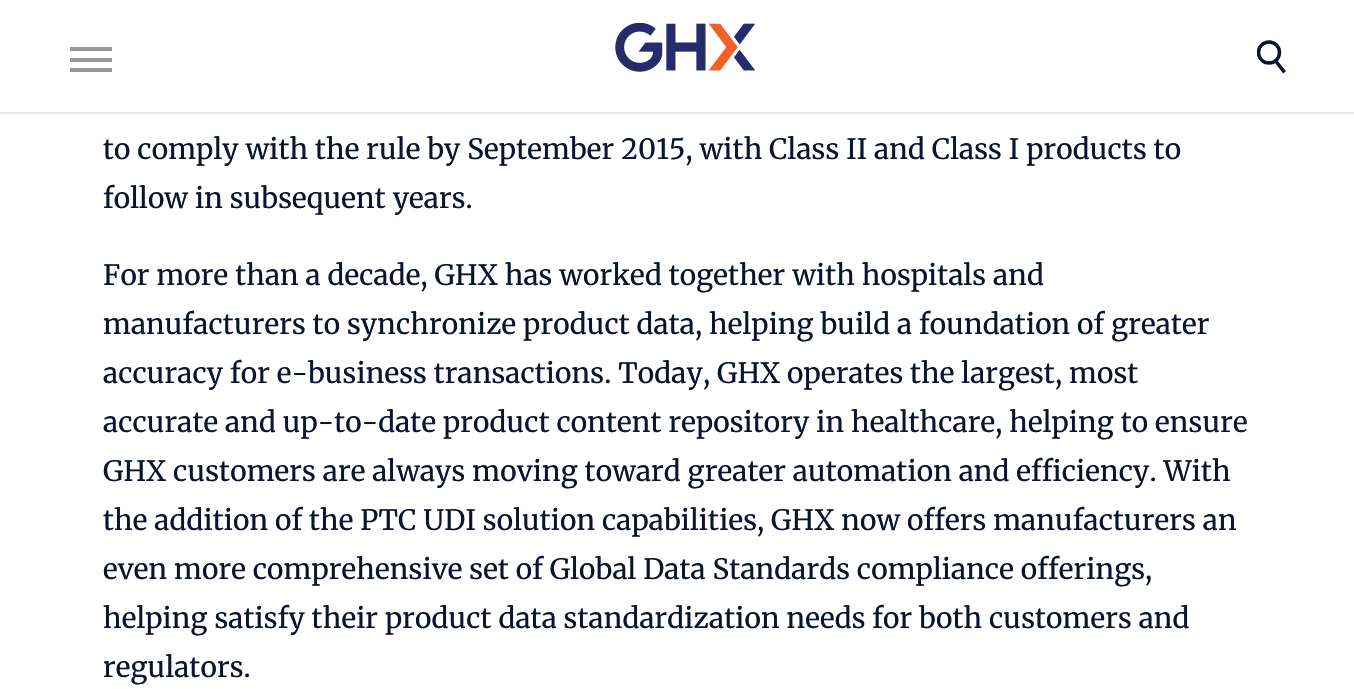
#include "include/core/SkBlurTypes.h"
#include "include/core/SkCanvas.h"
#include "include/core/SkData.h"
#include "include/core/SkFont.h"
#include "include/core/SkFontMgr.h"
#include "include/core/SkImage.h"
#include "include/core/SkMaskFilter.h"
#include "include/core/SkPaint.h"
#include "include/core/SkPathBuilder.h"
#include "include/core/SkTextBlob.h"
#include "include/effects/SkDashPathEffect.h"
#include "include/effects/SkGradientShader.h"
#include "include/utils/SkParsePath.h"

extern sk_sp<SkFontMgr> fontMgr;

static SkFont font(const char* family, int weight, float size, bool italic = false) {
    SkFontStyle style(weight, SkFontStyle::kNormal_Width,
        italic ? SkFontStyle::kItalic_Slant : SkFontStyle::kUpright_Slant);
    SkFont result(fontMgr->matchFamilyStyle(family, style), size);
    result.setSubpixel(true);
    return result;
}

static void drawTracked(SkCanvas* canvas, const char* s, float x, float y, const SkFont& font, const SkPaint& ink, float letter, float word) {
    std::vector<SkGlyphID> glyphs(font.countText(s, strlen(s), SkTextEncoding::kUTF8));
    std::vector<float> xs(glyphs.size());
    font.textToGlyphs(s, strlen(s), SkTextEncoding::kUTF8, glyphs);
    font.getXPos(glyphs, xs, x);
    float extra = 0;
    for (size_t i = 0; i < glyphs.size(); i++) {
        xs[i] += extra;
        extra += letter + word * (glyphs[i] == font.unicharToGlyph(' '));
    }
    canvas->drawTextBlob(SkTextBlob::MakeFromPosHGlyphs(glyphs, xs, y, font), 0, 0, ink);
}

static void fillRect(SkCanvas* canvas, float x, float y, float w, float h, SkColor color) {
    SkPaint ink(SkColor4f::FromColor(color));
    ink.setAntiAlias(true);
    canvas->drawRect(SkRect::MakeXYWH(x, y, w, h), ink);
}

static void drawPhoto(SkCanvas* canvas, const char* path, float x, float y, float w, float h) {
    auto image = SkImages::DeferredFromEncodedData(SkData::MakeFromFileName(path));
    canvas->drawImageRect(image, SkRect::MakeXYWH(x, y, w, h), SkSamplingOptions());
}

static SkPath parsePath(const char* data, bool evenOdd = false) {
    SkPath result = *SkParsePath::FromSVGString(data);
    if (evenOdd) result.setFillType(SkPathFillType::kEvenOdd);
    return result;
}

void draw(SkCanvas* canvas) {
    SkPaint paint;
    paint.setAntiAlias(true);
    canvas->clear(0xFFFFFFFF);
    fillRect(canvas, 0, 112, 1354, 2, 0xFFE6E9EC);
    fillRect(canvas, 70, 47, 42, 4, 0xFF979797);
    fillRect(canvas, 70, 58, 42, 4, 0xFF979797);
    fillRect(canvas, 70, 68, 42, 4, 0xFF979797);
    drawPhoto(canvas, "assets/img1.png", 615, 23, 140, 49);
    canvas->save();
    canvas->clipRect(SkRect::MakeXYWH(1257, 40, 29, 34));
    paint.setStroke(true);
    paint.setStrokeWidth(3.5f);
    paint.setColor(0xFF091431);
    canvas->drawCircle(1269, 52.5f, 10.5f, paint);
    canvas->restore();
    paint.setStrokeCap(SkPaint::kSquare_Cap);
    canvas->drawPath(parsePath("M1276.5 62L1283.5 71"), paint);
    SkFont font1 = font("Merriweather", 300, 28);
    paint.setStroke(false);
    drawTracked(canvas, "to comply with the rule by September 2015, with Class II and Class I products to", 103, 159, font1, paint, 0.15f, 0);
    drawTracked(canvas, "follow in subsequent years.", 103, 208, font1, paint, 0.15f, 0);
    drawTracked(canvas, "For more than a decade, GHX has worked together with hospitals and", 103, 285, font1, paint, 0.15f, 0);
    drawTracked(canvas, "manufacturers to synchronize product data, helping build a foundation of greater", 103, 334, font1, paint, 0.15f, 0);
    drawTracked(canvas, "accuracy for e-business transactions. Today, GHX operates the largest, most", 103, 383, font1, paint, 0.15f, 0);
    drawTracked(canvas, "accurate and up-to-date product content repository in healthcare, helping to ensure", 103, 432, font1, paint, 0.15f, 0);
    drawTracked(canvas, "GHX customers are always moving toward greater automation and efficiency. With", 103, 481, font1, paint, 0.15f, 0);
    drawTracked(canvas, "the addition of the PTC UDI solution capabilities, GHX now offers manufacturers an", 103, 530, font1, paint, 0.15f, 0);
    drawTracked(canvas, "even more comprehensive set of Global Data Standards compliance offerings,", 103, 579, font1, paint, 0.15f, 0);
    drawTracked(canvas, "helping satisfy their product data standardization needs for both customers and", 103, 628, font1, paint, 0.15f, 0);
    drawTracked(canvas, "regulators.", 103, 677, font1, paint, 0.15f, 0);
}
